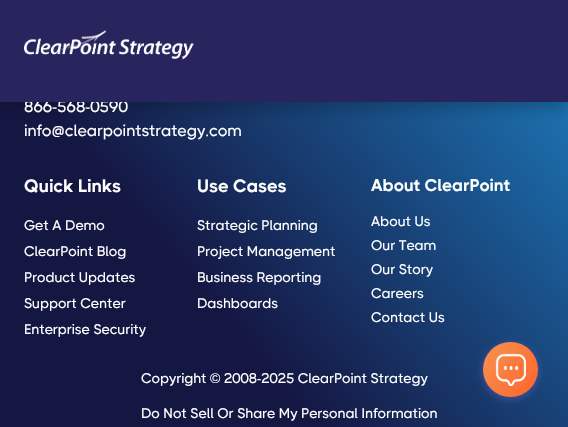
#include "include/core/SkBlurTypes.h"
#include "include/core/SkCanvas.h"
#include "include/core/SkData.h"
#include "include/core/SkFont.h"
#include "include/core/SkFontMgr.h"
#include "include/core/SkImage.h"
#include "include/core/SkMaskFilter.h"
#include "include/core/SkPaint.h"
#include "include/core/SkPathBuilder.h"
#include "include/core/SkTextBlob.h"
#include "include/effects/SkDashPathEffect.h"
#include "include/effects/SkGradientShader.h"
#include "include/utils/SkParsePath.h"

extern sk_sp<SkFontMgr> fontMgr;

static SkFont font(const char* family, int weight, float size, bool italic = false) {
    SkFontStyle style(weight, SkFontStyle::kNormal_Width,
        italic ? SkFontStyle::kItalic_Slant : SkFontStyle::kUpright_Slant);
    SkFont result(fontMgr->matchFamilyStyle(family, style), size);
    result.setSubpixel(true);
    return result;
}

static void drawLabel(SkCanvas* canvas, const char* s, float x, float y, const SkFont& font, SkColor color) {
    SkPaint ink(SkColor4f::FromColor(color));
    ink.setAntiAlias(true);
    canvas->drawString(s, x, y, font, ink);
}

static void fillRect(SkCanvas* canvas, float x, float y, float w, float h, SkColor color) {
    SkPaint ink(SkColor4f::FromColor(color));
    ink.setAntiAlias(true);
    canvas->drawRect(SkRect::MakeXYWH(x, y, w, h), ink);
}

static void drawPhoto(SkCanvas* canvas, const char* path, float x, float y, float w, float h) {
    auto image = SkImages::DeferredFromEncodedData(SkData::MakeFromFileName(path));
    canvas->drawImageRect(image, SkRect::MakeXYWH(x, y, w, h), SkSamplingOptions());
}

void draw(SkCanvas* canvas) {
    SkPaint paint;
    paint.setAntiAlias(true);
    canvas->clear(0xFFFFFFFF);
    {
        const SkColor colors[] = {0xFF1D84C7, 0xFF151743};
        const float stops[] = {0, 0.64f};
        const SkPoint ends[] = {{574, -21}, {-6, 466}};
        paint.setShader(SkGradientShader::MakeLinear(ends, colors, stops, 2, SkTileMode::kClamp));
        paint.setAlpha(255);
    }
    canvas->drawRect(SkRect::MakeXYWH(0, 102, 568, 325), paint);
    paint.setShader(nullptr);
    paint.setColor(0x33000000);
    paint.setMaskFilter(SkMaskFilter::MakeBlur(kNormal_SkBlurStyle, 6.5f));
    canvas->drawRect(SkRect::MakeXYWH(0, 8, 568, 102), paint);
    paint.setMaskFilter(nullptr);
    SkFont font1 = font("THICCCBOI", 500, 16);
    drawLabel(canvas, "866-568-0590", 24, 112, font1, 0xFFFFFFFF);
    fillRect(canvas, 0, 0, 568, 102, 0xFF27245E);
    drawPhoto(canvas, "assets/img1.png", 24, 30, 170, 30);
    drawLabel(canvas, "info@clearpointstrategy.com", 24, 136, font1, 0xFFFFFFFF);
    SkFont font2 = font("THICCCBOI", 700, 18);
    drawLabel(canvas, "Quick Links", 24, 192, font2, 0xFFFFFFFF);
    SkFont font3 = font("THICCCBOI", 500, 14);
    drawLabel(canvas, "Get A Demo", 24, 230, font3, 0xFFFFFFFF);
    drawLabel(canvas, "ClearPoint Blog", 24, 256, font3, 0xFFFFFFFF);
    drawLabel(canvas, "Product Updates", 24, 282, font3, 0xFFFFFFFF);
    drawLabel(canvas, "Support Center", 24, 308, font3, 0xFFFFFFFF);
    drawLabel(canvas, "Enterprise Security", 24, 334, font3, 0xFFFFFFFF);
    drawLabel(canvas, "Use Cases", 197, 192, font2, 0xFFFFFFFF);
    drawLabel(canvas, "Strategic Planning", 197, 230, font3, 0xFFFFFFFF);
    drawLabel(canvas, "Project Management", 197, 256, font3, 0xFFFFFFFF);
    drawLabel(canvas, "Business Reporting", 197, 282, font3, 0xFFFFFFFF);
    drawLabel(canvas, "Dashboards", 197, 308, font3, 0xFFFFFFFF);
    SkFont font4 = font("THICCCBOI", 700, 17);
    drawLabel(canvas, "About ClearPoint", 371, 191, font4, 0xFFFFFFFF);
    drawLabel(canvas, "About Us", 371, 226, font3, 0xFFFFFFFF);
    drawLabel(canvas, "Our Team", 371, 250, font3, 0xFFFFFFFF);
    drawLabel(canvas, "Our Story", 371, 274, font3, 0xFFFFFFFF);
    drawLabel(canvas, "Careers", 371, 298, font3, 0xFFFFFFFF);
    drawLabel(canvas, "Contact Us", 371, 322, font3, 0xFFFFFFFF);
    drawLabel(canvas, "Copyright", 141, 383, font3, 0xFFFFFFFF);
    SkFont font5 = font("Liberation Sans", 400, 14);
    drawLabel(canvas, "©", 210, 383, font5, 0xFFFFFFFF);
    drawLabel(canvas, "2008-2025 ClearPoint Strategy", 224, 383, font3, 0xFFFFFFFF);
    drawLabel(canvas, "Do Not Sell Or Share My Personal Information", 141, 418, font3, 0xFFFFFFFF);
    paint.setColor(0x33AB7CFF);
    paint.setMaskFilter(SkMaskFilter::MakeBlur(kNormal_SkBlurStyle, 2.5f));
    canvas->drawRoundRect(SkRect::MakeXYWH(481, 342, 59, 59), 29.5f, 29.5f, paint);
    paint.setMaskFilter(nullptr);
    {
        const SkColor colors[] = {0xFFFF642C, 0xFFF69351};
        const float stops[] = {0, 1};
        const SkPoint ends[] = {{542, 391}, {479, 348}};
        paint.setShader(SkGradientShader::MakeLinear(ends, colors, stops, 2, SkTileMode::kClamp));
        paint.setAlpha(255);
    }
    canvas->drawCircle(510.5f, 369.5f, 27.5f, paint);
    drawPhoto(canvas, "assets/img2.png", 495, 353, 31, 33);
    drawPhoto(canvas, "assets/img3.png", 503, 366, 15, 4);
}
